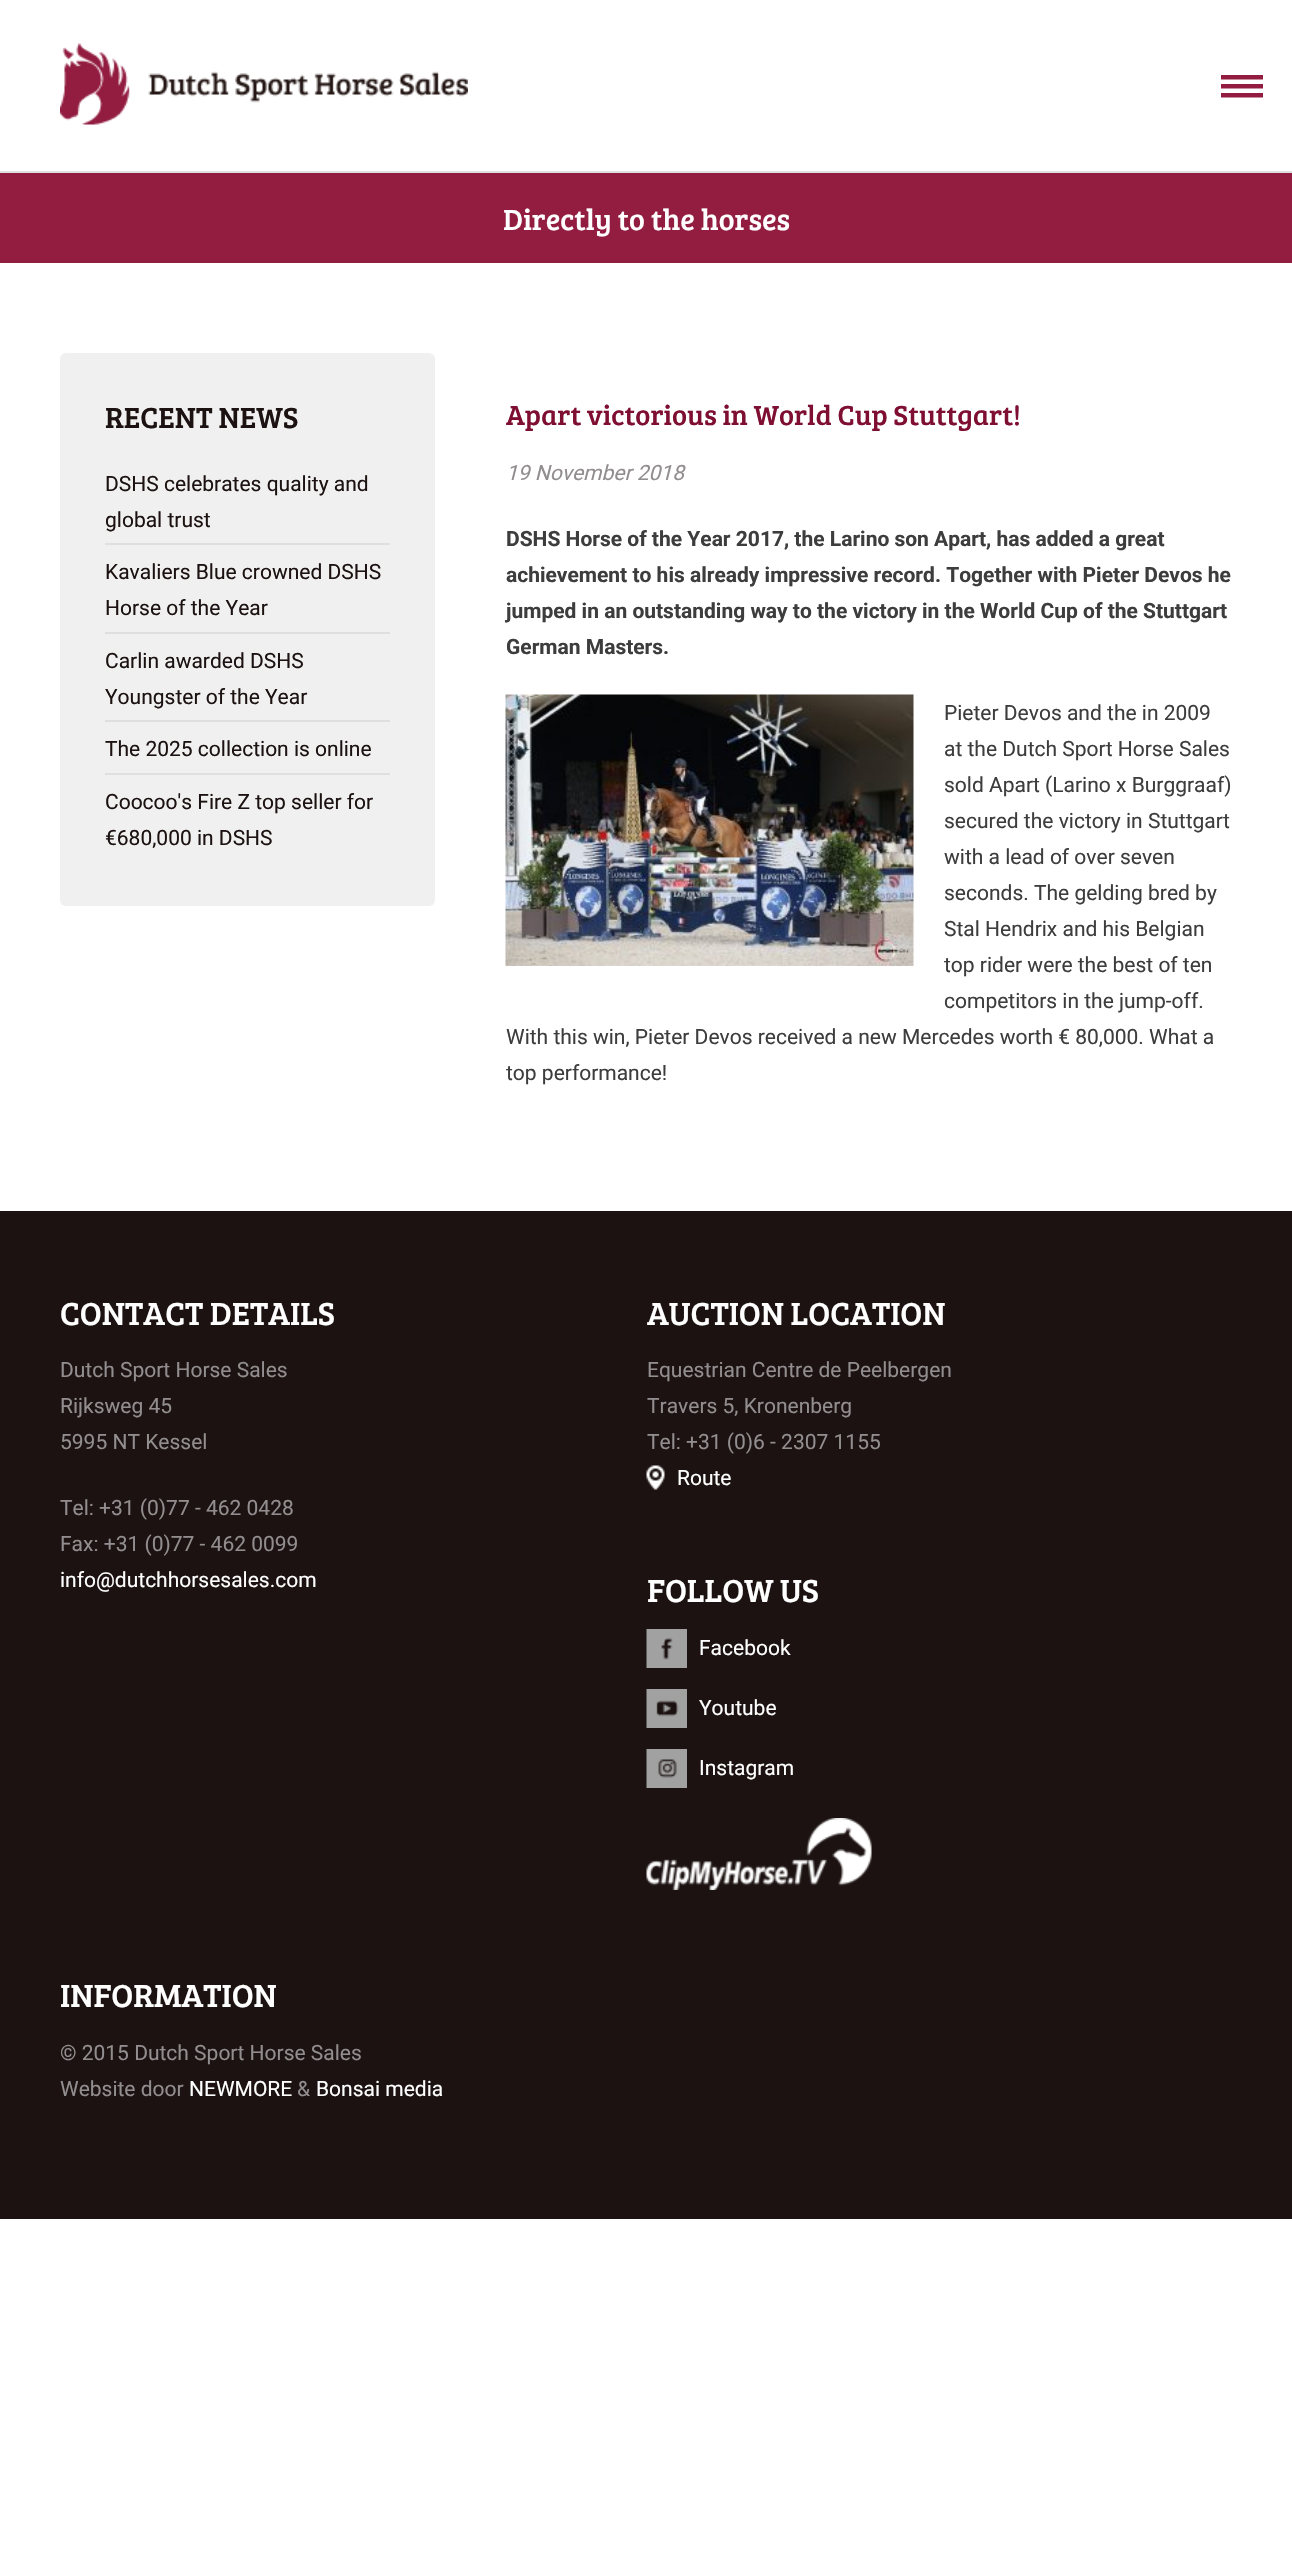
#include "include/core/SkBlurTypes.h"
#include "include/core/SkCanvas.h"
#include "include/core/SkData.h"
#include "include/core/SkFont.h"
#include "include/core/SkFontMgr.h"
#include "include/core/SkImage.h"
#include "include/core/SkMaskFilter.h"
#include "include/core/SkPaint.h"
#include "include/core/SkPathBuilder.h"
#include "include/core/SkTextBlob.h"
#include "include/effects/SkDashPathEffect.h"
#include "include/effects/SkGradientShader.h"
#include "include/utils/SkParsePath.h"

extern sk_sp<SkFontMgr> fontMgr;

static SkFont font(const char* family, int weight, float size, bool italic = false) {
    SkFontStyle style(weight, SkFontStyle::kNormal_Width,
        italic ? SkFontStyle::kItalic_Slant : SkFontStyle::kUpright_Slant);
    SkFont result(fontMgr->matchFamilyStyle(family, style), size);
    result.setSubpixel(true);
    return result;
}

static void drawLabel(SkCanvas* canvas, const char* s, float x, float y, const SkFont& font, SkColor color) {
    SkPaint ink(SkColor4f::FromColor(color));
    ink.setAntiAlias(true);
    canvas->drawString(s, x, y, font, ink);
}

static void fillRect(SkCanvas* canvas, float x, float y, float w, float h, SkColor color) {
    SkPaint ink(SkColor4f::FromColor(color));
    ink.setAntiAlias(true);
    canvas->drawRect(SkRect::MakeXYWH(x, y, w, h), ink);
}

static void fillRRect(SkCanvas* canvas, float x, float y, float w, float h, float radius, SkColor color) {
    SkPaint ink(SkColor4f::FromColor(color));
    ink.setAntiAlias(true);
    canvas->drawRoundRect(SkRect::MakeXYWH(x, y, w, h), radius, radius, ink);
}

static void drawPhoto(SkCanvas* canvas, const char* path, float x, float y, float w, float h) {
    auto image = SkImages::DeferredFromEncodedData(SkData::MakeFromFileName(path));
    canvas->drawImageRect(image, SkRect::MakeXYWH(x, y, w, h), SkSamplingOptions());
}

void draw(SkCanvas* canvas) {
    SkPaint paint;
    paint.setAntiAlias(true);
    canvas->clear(0xFFFFFFFF);
    fillRect(canvas, 0, 171, 1292, 2, 0xFFE0DFDF);
    drawPhoto(canvas, "assets/img1.png", 60, 43, 408, 82);
    drawPhoto(canvas, "assets/img2.png", 1221, 75, 42, 23);
    fillRect(canvas, 0, 173, 1292, 90, 0xFF921D41);
    SkFont font1 = font("Bree Serif", 400, 30);
    drawLabel(canvas, "Directly to the horses", 503, 230, font1, 0xFFFFFFFF);
    fillRRect(canvas, 60, 353, 375, 553, 6, 0xFFF0F0F0);
    drawLabel(canvas, "RECENT NEWS", 105, 428, font1, 0xFF1B1211);
    fillRect(canvas, 105, 543, 285, 2, 0xFFE0DFDF);
    SkFont font2 = font("Roboto", 400, 21);
    drawLabel(canvas, "DSHS celebrates quality and", 105, 491, font2, 0xFF1B1211);
    drawLabel(canvas, "global trust", 105, 527, font2, 0xFF1B1211);
    fillRect(canvas, 105, 632, 285, 2, 0xFFE0DFDF);
    drawLabel(canvas, "Kavaliers Blue crowned DSHS", 105, 579, font2, 0xFF1B1211);
    drawLabel(canvas, "Horse of the Year", 105, 615, font2, 0xFF1B1211);
    fillRect(canvas, 105, 720, 285, 2, 0xFFE0DFDF);
    drawLabel(canvas, "Carlin awarded DSHS", 105, 668, font2, 0xFF1B1211);
    drawLabel(canvas, "Youngster of the Year", 105, 704, font2, 0xFF1B1211);
    fillRect(canvas, 105, 773, 285, 2, 0xFFE0DFDF);
    drawLabel(canvas, "The 2025 collection is online", 105, 756, font2, 0xFF1B1211);
    drawLabel(canvas, "Coocoo's Fire Z top seller for", 105, 809, font2, 0xFF1B1211);
    drawLabel(canvas, "€680,000 in DSHS", 105, 845, font2, 0xFF1B1211);
    SkFont font3 = font("Bree Serif", 400, 28.5f);
    drawLabel(canvas, "Apart victorious in World Cup Stuttgart!", 506, 425, font3, 0xFF7E0E32);
    SkFont font4 = font("Roboto", 400, 21, true);
    drawLabel(canvas, "19 November 2018", 506, 480, font4, 0xFF928D8F);
    SkFont font5 = font("Roboto", 700, 21);
    drawLabel(canvas, "DSHS Horse of the Year 2017, the Larino son Apart, has added a great", 506, 546, font5, 0xFF3D3D3D);
    drawLabel(canvas, "achievement to his already impressive record. Together with Pieter Devos he", 506, 582, font5, 0xFF3D3D3D);
    drawLabel(canvas, "jumped in an outstanding way to the victory in the World Cup of the Stuttgart", 506, 618, font5, 0xFF3D3D3D);
    drawLabel(canvas, "German Masters.", 506, 654, font5, 0xFF3D3D3D);
    drawPhoto(canvas, "assets/img3.png", 505, 694, 409, 272);
    drawLabel(canvas, "Pieter Devos and the in 2009", 944, 720, font2, 0xFF3D3D3D);
    drawLabel(canvas, "at the Dutch Sport Horse Sales", 944, 756, font2, 0xFF3D3D3D);
    drawLabel(canvas, "sold Apart (Larino x Burggraaf)", 944, 792, font2, 0xFF3D3D3D);
    drawLabel(canvas, "secured the victory in Stuttgart", 944, 828, font2, 0xFF3D3D3D);
    drawLabel(canvas, "with a lead of over seven", 944, 864, font2, 0xFF3D3D3D);
    drawLabel(canvas, "seconds. The gelding bred by", 944, 900, font2, 0xFF3D3D3D);
    drawLabel(canvas, "Stal Hendrix and his Belgian", 944, 936, font2, 0xFF3D3D3D);
    drawLabel(canvas, "top rider were the best of ten", 944, 972, font2, 0xFF3D3D3D);
    drawLabel(canvas, "competitors in the jump-off.", 944, 1008, font2, 0xFF3D3D3D);
    drawLabel(canvas, "With this win, Pieter Devos received a new Mercedes worth € 80,000. What a", 506, 1044, font2, 0xFF3D3D3D);
    drawLabel(canvas, "top performance!", 506, 1080, font2, 0xFF3D3D3D);
    fillRect(canvas, 0, 1211, 1292, 1008, 0xFF1B1211);
    SkFont font6 = font("Bree Serif", 400, 33);
    drawLabel(canvas, "CONTACT DETAILS", 60, 1325, font6, 0xFFFFFFFF);
    drawLabel(canvas, "Dutch Sport Horse Sales", 60, 1377, font2, 0xFF928D8F);
    drawLabel(canvas, "Rijksweg 45", 60, 1413, font2, 0xFF928D8F);
    drawLabel(canvas, "5995 NT Kessel", 60, 1449, font2, 0xFF928D8F);
    drawLabel(canvas, "Tel: +31 (0)77 - 462 0428", 60, 1515, font2, 0xFF928D8F);
    drawLabel(canvas, "Fax: +31 (0)77 - 462 0099", 60, 1551, font2, 0xFF928D8F);
    drawLabel(canvas, "info@dutchhorsesales.com", 60, 1587, font2, 0xFFFFFFFF);
    drawLabel(canvas, "AUCTION LOCATION", 647, 1325, font6, 0xFFFFFFFF);
    drawLabel(canvas, "Equestrian Centre de Peelbergen", 647, 1377, font2, 0xFF928D8F);
    drawLabel(canvas, "Travers 5, Kronenberg", 647, 1413, font2, 0xFF928D8F);
    drawLabel(canvas, "Tel: +31 (0)6 - 2307 1155", 647, 1449, font2, 0xFF928D8F);
    drawPhoto(canvas, "assets/img4.png", 646, 1465, 19, 25);
    drawLabel(canvas, "Route", 677, 1485, font2, 0xFFFFFFFF);
    drawLabel(canvas, "FOLLOW US", 647, 1602, font6, 0xFFFFFFFF);
    drawPhoto(canvas, "assets/img5.png", 646, 1629, 41, 39);
    drawLabel(canvas, "Facebook", 699, 1655, font2, 0xFFFFFFFF);
    drawPhoto(canvas, "assets/img6.png", 646, 1689, 41, 39);
    drawLabel(canvas, "Youtube", 699, 1715, font2, 0xFFFFFFFF);
    drawPhoto(canvas, "assets/img7.png", 646, 1749, 41, 39);
    drawLabel(canvas, "Instagram", 699, 1775, font2, 0xFFFFFFFF);
    drawPhoto(canvas, "assets/img8.png", 646, 1818, 226, 72);
    drawLabel(canvas, "INFORMATION", 60, 2007, font6, 0xFFFFFFFF);
    drawLabel(canvas, "© 2015 Dutch Sport Horse Sales", 60, 2060, font2, 0xFF928D8F);
    drawLabel(canvas, "Website door", 60, 2096, font2, 0xFF928D8F);
    drawLabel(canvas, "NEWMORE", 189, 2096, font2, 0xFFFFFFFF);
    drawLabel(canvas, "&", 297, 2096, font2, 0xFF928D8F);
    drawLabel(canvas, "Bonsai media", 316, 2096, font2, 0xFFFFFFFF);
}
